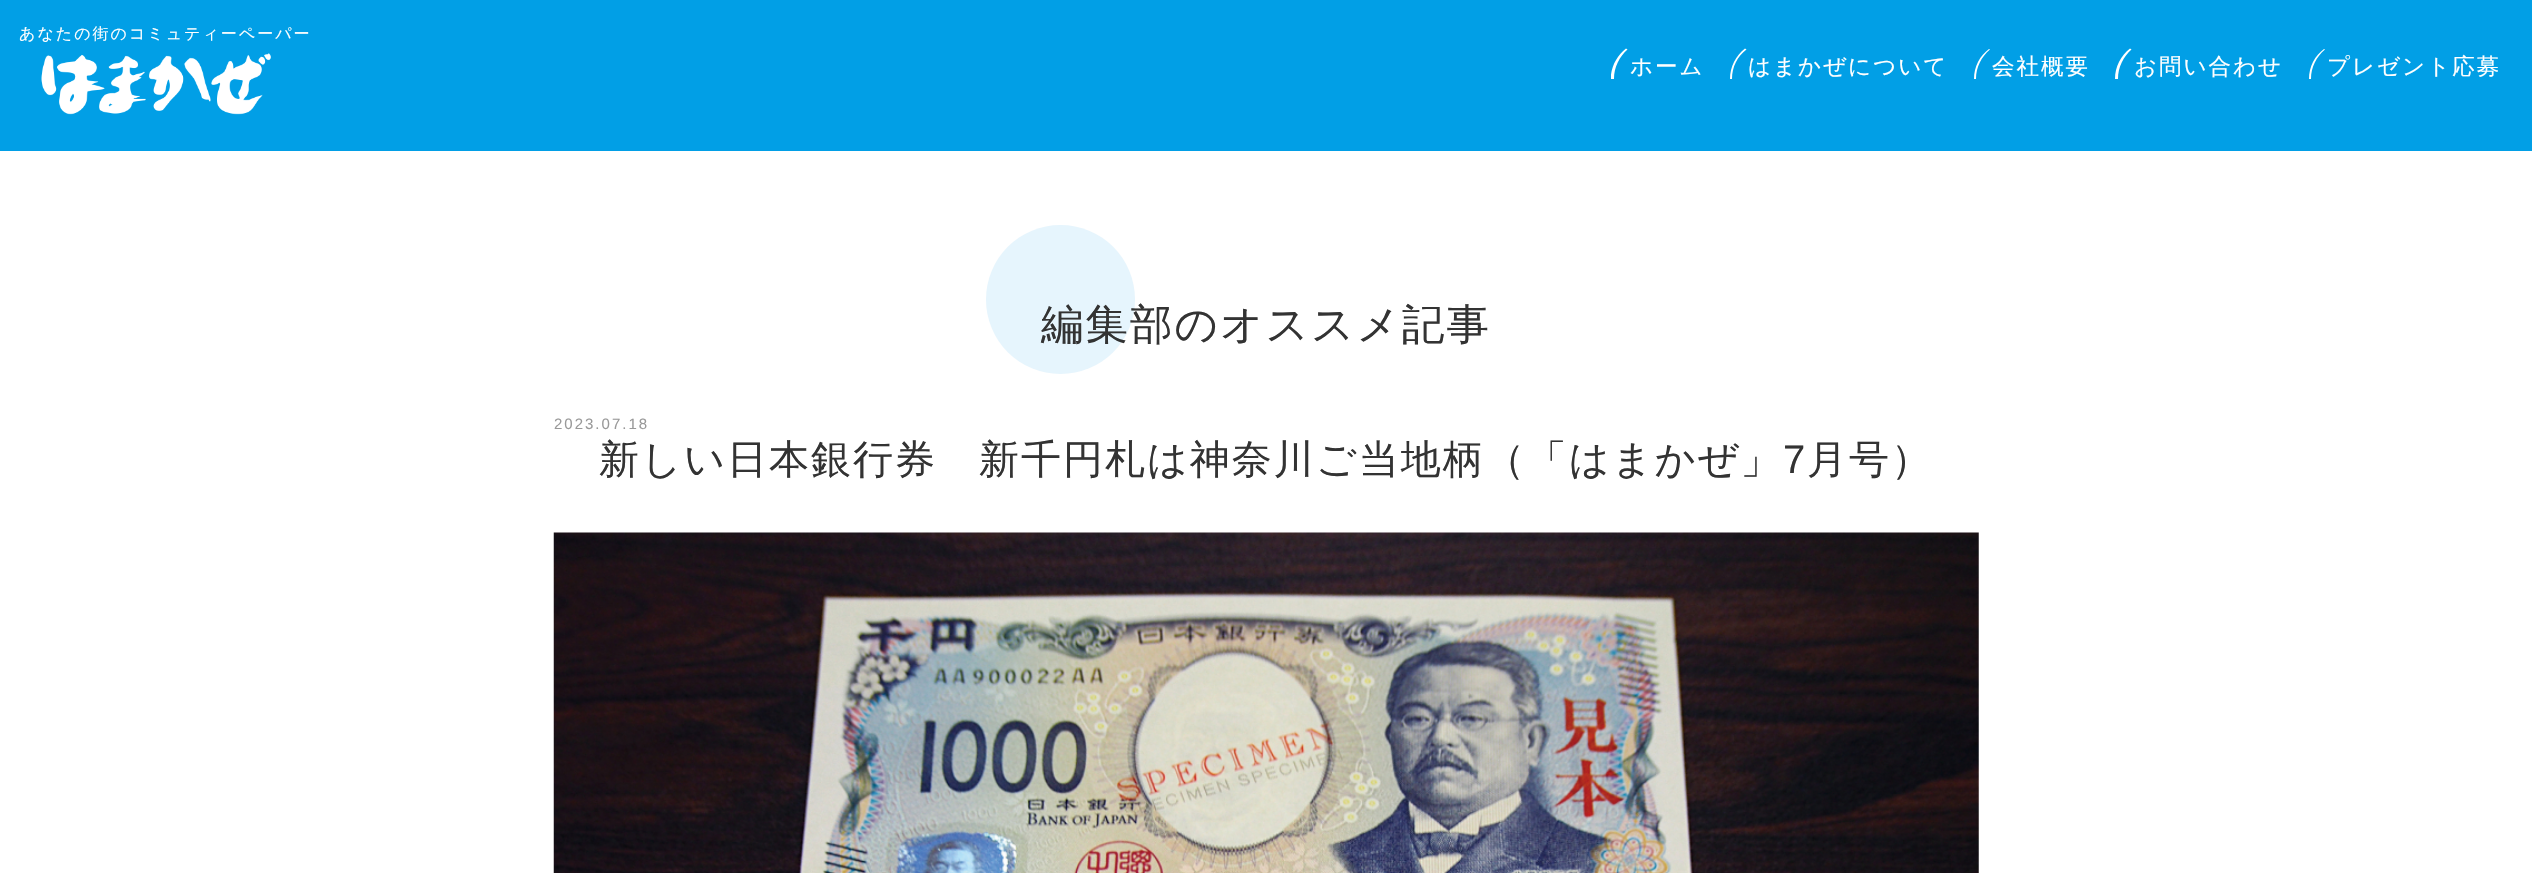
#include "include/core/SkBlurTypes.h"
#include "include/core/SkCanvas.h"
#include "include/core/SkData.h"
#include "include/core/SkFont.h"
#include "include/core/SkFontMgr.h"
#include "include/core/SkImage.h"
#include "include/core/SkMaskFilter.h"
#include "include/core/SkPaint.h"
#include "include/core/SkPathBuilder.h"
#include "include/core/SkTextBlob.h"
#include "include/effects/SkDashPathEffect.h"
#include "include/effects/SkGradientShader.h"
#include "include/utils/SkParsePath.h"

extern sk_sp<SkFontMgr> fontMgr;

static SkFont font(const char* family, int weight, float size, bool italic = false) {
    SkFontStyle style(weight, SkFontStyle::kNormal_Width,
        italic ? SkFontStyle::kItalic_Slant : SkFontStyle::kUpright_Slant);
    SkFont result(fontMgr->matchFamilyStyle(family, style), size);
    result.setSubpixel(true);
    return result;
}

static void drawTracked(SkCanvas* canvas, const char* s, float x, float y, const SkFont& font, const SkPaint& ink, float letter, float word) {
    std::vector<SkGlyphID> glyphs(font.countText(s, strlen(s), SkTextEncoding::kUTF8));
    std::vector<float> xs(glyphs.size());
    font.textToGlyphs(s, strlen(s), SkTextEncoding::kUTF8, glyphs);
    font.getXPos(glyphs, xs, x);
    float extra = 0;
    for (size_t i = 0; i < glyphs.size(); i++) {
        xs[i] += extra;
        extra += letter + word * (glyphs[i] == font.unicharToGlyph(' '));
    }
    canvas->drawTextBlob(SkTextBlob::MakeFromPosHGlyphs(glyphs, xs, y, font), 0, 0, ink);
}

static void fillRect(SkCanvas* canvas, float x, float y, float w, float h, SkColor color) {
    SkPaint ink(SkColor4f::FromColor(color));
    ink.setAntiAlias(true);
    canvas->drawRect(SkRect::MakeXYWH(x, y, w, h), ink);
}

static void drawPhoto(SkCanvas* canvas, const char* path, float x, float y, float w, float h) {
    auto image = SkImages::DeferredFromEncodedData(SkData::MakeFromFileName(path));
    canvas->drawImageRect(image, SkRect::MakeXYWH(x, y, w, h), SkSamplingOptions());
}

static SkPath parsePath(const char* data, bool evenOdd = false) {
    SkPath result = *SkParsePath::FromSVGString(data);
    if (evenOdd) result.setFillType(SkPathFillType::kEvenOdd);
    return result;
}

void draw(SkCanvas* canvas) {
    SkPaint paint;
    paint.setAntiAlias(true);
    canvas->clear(0xFFFFFFFF);
    fillRect(canvas, 0, 0, 2532, 151, 0xFF019FE6);
    SkFont font1 = font("WenQuanYi Zen Hei", 500, 16);
    paint.setColor(0xFFFFFFFF);
    drawTracked(canvas, "あなたの街のコミュティーペーパー", 19, 39, font1, paint, 2, 0);
    drawPhoto(canvas, "assets/img1.png", 41, 53, 230, 62);
    canvas->drawPath(parsePath("M1611 79V74.5C1612.5 64 1618 55 1626 48.5L1627.5 49.5C1619.5 56.5 1614 67 1614 79Z"), paint);
    SkFont font2 = font("WenQuanYi Zen Hei", 500, 22.5f);
    drawTracked(canvas, "ホーム", 1630, 74, font2, paint, 2, 0);
    canvas->drawPath(parsePath("M1730 79C1730 66.5 1736 55.5 1745 48.5L1746.5 49.5C1737.5 56 1732 67 1732 79Z"), paint);
    drawTracked(canvas, "はまかぜについて", 1748, 74, font2, paint, 2, 0);
    canvas->drawPath(parsePath("M1974 79C1974 66.5 1980 55.5 1989 49L1990 49.5C1981.5 56.5 1976 67 1976 79Z"), paint);
    drawTracked(canvas, "会社概要", 1992, 74, font2, paint, 2, 0);
    canvas->drawPath(parsePath("M2115 79C2115 66.5 2121 55.5 2130 48.5L2131.5 49.5C2123.5 56.5 2118 67 2118 79Z"), paint);
    drawTracked(canvas, "お問い合わせ", 2134, 74, font2, paint, 2, 0);
    canvas->drawPath(parsePath("M2309 79C2309 66.5 2315 55.5 2324 49L2325 49.5C2316.5 56.5 2311 67 2311 79Z"), paint);
    drawTracked(canvas, "プレゼント応募", 2327, 74, font2, paint, 2, 0);
    paint.setColor(0xFFE6F5FD);
    canvas->drawCircle(1060.5f, 299.5f, 74.5f, paint);
    SkFont font3 = font("WenQuanYi Zen Hei", 500, 42.5f);
    paint.setColor(0xFF333333);
    drawTracked(canvas, "編集部のオススメ記事", 1041, 339, font3, paint, 2, 0);
    SkFont font4 = font("Liberation Sans", 400, 15);
    paint.setColor(0xFF999999);
    drawTracked(canvas, "2023.07.18", 554, 429, font4, paint, 2, 0);
    SkFont font5 = font("WenQuanYi Zen Hei", 500, 40);
    paint.setColor(0xFF333333);
    drawTracked(canvas, "新しい日本銀行券　新千円札は神奈川ご当地柄（「はまかぜ」", 599, 473, font5, paint, 2, 0);
    SkFont font6 = font("Liberation Sans", 400, 40);
    drawTracked(canvas, "7", 1783, 473, font6, paint, 2, 0);
    drawTracked(canvas, "月号）", 1807, 473, font5, paint, 2, 0);
    drawPhoto(canvas, "assets/img2.png", 553, 532, 1426, 341);
}
